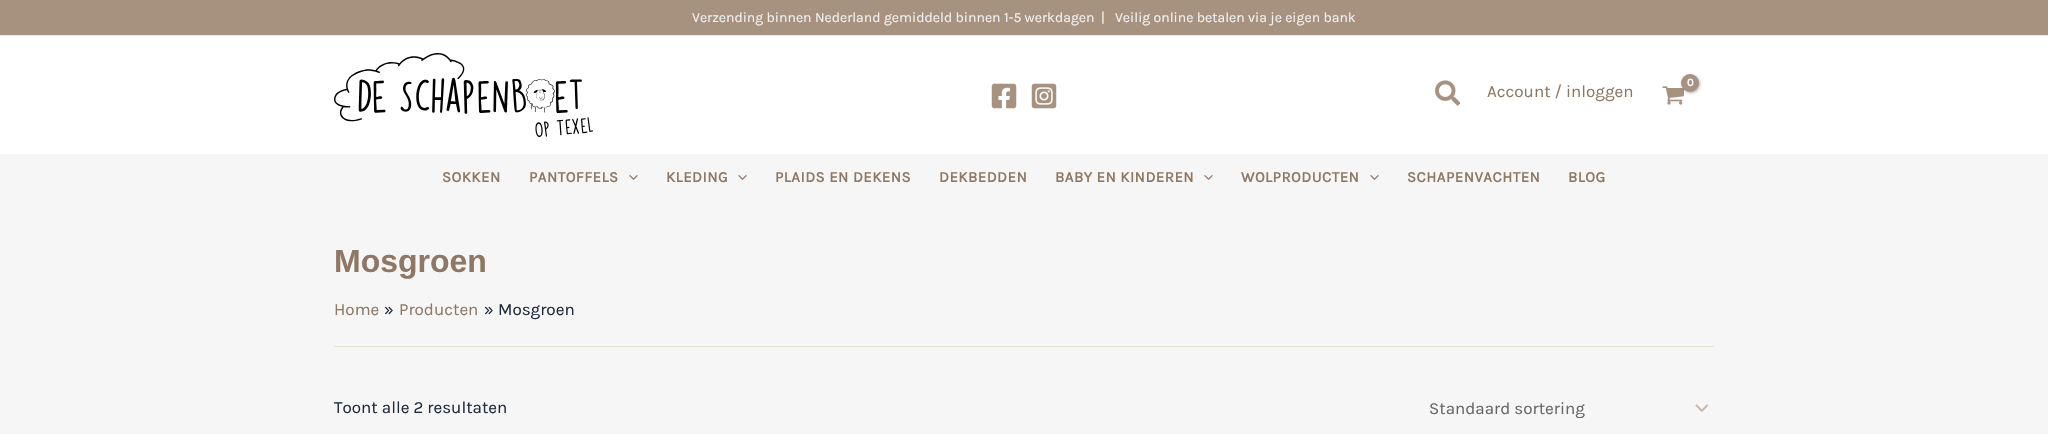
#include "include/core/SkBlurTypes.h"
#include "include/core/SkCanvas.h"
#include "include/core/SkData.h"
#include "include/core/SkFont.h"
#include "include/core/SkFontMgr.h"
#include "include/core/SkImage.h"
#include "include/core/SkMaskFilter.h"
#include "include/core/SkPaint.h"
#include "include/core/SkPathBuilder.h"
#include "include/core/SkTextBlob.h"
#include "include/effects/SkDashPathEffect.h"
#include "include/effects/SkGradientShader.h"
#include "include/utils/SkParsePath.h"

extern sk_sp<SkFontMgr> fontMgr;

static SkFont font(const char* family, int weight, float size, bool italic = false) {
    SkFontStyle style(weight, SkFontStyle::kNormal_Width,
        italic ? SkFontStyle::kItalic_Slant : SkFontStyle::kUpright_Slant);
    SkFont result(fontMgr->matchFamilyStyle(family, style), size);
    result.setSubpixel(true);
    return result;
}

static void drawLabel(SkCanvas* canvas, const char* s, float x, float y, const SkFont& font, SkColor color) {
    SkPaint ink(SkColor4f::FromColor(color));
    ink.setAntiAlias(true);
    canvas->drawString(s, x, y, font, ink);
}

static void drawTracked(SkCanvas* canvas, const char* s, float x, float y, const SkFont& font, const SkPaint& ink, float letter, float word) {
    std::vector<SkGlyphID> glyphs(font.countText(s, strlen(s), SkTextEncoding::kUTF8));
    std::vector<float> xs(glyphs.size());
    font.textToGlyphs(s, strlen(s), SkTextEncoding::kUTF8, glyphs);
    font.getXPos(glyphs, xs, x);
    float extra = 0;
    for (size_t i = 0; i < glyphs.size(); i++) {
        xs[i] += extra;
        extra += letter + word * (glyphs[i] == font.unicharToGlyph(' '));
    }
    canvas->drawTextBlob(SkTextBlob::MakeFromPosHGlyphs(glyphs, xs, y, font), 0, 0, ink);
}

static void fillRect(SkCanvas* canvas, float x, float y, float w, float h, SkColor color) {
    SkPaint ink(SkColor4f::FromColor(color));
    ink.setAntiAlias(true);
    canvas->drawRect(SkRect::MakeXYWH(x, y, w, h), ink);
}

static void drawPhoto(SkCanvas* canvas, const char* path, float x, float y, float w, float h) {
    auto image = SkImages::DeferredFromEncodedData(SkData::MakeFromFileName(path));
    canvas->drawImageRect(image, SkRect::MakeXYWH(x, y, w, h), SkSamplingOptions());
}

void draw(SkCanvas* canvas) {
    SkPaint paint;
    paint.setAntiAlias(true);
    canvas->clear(0xFFF7F6F6);
    fillRect(canvas, 0, 0, 2048, 35, 0xFFA7927F);
    fillRect(canvas, 0, 35, 2048, 1, 0xFFEAEAEA);
    SkFont font1 = font("Karla", 400, 14);
    drawLabel(canvas, "Verzending binnen Nederland gemiddeld binnen 1-5 werkdagen  |   Veilig online betalen via je eigen bank", 692, 22, font1, 0xFFF1F1F1);
    fillRect(canvas, 0, 36, 2048, 118, 0xFFFFFFFF);
    drawPhoto(canvas, "assets/img1.png", 334, 53, 259, 84);
    drawPhoto(canvas, "assets/img2.png", 991, 83, 26, 26);
    drawPhoto(canvas, "assets/img3.png", 1031, 83, 26, 26);
    drawPhoto(canvas, "assets/img4.png", 1435, 80, 25, 26);
    SkFont font2 = font("Karla", 400, 17);
    drawLabel(canvas, "Account / inloggen", 1487, 97, font2, 0xFF8E7865);
    drawPhoto(canvas, "assets/img5.png", 1662, 86, 22, 19);
    paint.setColor(0x4D000000);
    paint.setMaskFilter(SkMaskFilter::MakeBlur(kNormal_SkBlurStyle, 1.5f));
    canvas->drawRoundRect(SkRect::MakeXYWH(1682, 75, 18, 18), 9, 9, paint);
    paint.setMaskFilter(nullptr);
    paint.setColor(0xFFA7927F);
    canvas->drawCircle(1690, 83, 9, paint);
    SkFont font3 = font("Karla", 700, 11);
    drawLabel(canvas, "0", 1687, 86, font3, 0xFFFFFFFF);
    SkFont font4 = font("Karla", 700, 15);
    paint.setColor(0xFF8E7865);
    drawTracked(canvas, "SOKKEN", 442, 182, font4, paint, 0.5f, 0);
    drawTracked(canvas, "PANTOFFELS", 529, 182, font4, paint, 0.5f, 0);
    drawPhoto(canvas, "assets/img6.png", 629, 175, 9, 5);
    drawTracked(canvas, "KLEDING", 666, 182, font4, paint, 0.5f, 0);
    drawPhoto(canvas, "assets/img6.png", 738, 175, 9, 5);
    drawTracked(canvas, "PLAIDS EN DEKENS", 775, 182, font4, paint, 0.5f, 0);
    drawTracked(canvas, "DEKBEDDEN", 939, 182, font4, paint, 0.5f, 0);
    drawTracked(canvas, "BABY EN KINDEREN", 1055, 182, font4, paint, 0.5f, 0);
    drawPhoto(canvas, "assets/img6.png", 1204, 175, 9, 5);
    drawTracked(canvas, "WOLPRODUCTEN", 1241, 182, font4, paint, 0.5f, 0);
    drawPhoto(canvas, "assets/img6.png", 1370, 175, 9, 5);
    drawTracked(canvas, "SCHAPENVACHTEN", 1407, 182, font4, paint, 0.5f, 0);
    drawTracked(canvas, "BLOG", 1568, 182, font4, paint, 0.5f, 0);
    fillRect(canvas, 334, 346, 1380, 1, 0xFFE6E3D5);
    SkFont font5 = font("Liberation Sans", 700, 32);
    drawLabel(canvas, "Mosgroen", 334, 272, font5, 0xFF8E7865);
    drawLabel(canvas, "Home", 334, 315, font2, 0xFF8E7865);
    drawLabel(canvas, "»", 384, 315, font2, 0xFF1E293B);
    drawLabel(canvas, "Producten", 399, 315, font2, 0xFF8E7865);
    drawLabel(canvas, "»", 484, 315, font2, 0xFF1E293B);
    drawLabel(canvas, "Mosgroen", 498, 315, font2, 0xFF1E293B);
    drawLabel(canvas, "Toont alle 2 resultaten", 334, 413, font2, 0xFF1E293B);
    drawPhoto(canvas, "assets/img7.png", 1695, 404, 13, 8);
    canvas->save();
    canvas->clipRect(SkRect::MakeXYWH(1429, 398, 277, 20));
    drawLabel(canvas, "Standaard sortering", 1429, 414, font2, 0xFF666666);
    canvas->restore();
}
